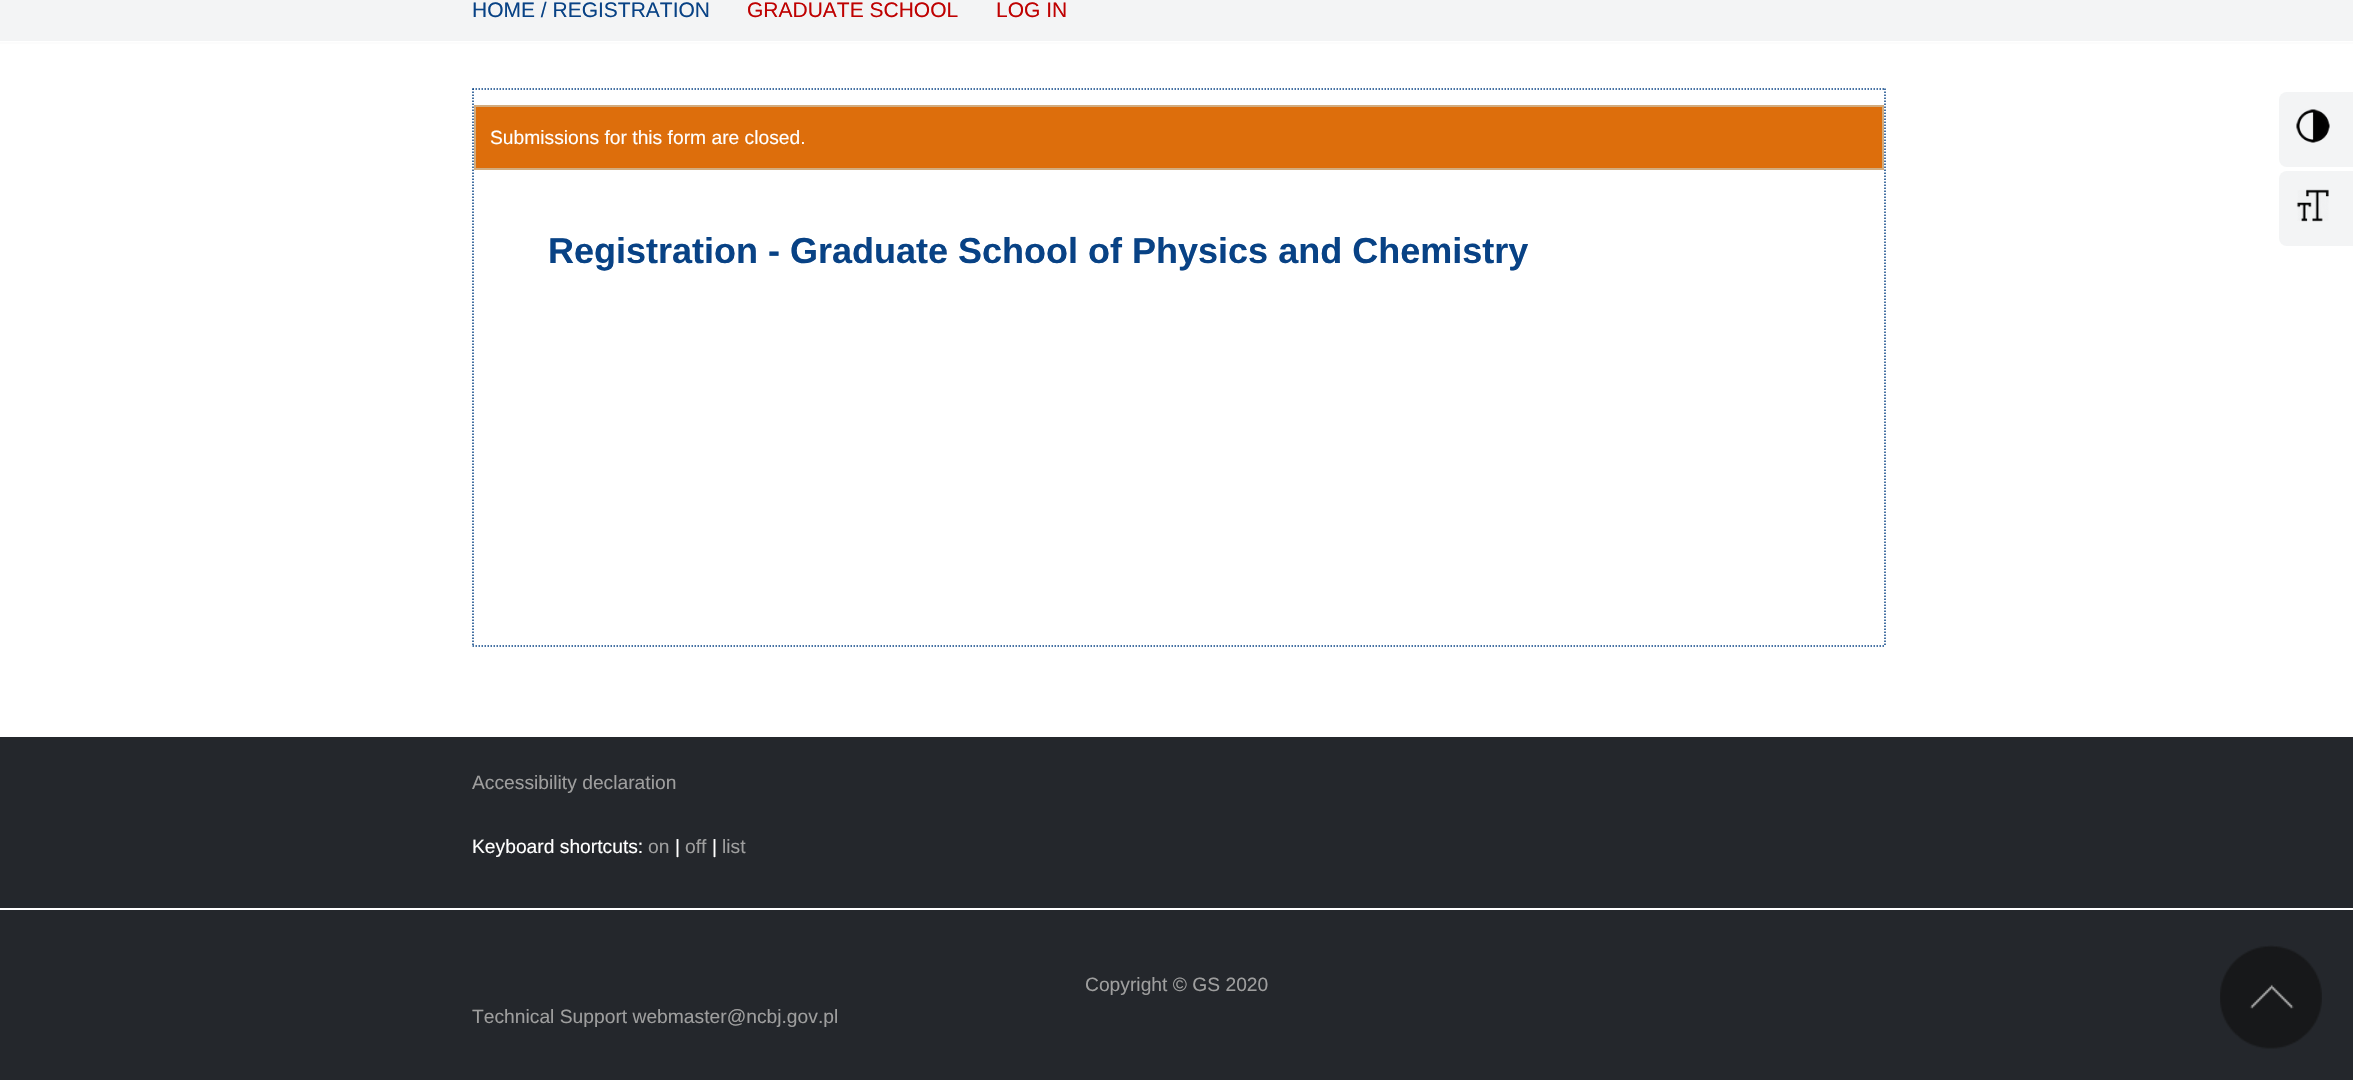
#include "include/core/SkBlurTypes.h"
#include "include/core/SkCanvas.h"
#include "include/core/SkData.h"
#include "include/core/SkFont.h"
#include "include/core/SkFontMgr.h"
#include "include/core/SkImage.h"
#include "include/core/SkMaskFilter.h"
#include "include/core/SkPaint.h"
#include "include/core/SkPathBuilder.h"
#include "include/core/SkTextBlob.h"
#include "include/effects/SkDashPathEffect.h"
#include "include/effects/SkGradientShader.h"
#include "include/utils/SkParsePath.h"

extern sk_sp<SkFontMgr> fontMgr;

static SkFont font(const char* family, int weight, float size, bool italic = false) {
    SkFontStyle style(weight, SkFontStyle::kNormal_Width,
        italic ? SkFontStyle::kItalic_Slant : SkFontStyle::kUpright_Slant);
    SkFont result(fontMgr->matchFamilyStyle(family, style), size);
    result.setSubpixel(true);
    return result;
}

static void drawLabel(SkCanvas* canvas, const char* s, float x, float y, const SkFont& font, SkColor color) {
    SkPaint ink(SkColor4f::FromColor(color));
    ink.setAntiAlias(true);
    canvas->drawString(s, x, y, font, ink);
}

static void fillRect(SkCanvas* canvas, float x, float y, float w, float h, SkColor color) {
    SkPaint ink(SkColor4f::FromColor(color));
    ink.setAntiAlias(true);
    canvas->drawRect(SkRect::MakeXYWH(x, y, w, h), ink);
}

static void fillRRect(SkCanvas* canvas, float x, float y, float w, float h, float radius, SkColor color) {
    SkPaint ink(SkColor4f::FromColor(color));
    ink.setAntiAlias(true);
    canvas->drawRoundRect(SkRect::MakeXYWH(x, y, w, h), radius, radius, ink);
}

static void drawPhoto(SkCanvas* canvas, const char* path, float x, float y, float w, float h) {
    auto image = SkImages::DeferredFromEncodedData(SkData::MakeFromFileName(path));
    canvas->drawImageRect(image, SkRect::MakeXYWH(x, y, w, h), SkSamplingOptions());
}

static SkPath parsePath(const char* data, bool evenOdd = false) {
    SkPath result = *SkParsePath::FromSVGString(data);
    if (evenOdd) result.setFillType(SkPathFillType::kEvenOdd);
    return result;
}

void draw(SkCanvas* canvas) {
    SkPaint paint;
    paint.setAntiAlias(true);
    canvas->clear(0xFF24272C);
    fillRect(canvas, 0, 0, 2353, 41, 0xFFF3F4F5);
    fillRect(canvas, 0, 41, 2353, 1, 0xFFFFFFFF);
    SkFont font1 = font("Liberation Sans", 400, 21);
    drawLabel(canvas, "HOME / REGISTRATION", 472, 17, font1, 0xFF084285);
    drawLabel(canvas, "GRADUATE SCHOOL", 747, 17, font1, 0xFFBF0101);
    drawLabel(canvas, "LOG IN", 996, 17, font1, 0xFFBF0101);
    fillRect(canvas, 0, 42, 2353, 2, 0xFFFCFCFC);
    fillRect(canvas, 0, 44, 2353, 693, 0xFFFFFFFF);
    paint.setStroke(true);
    paint.setStrokeWidth(1.5f);
    paint.setColor(0xFF084285);
    paint.setPathEffect(SkDashPathEffect::Make({{1.5f, 1.5f}}, 0));
    canvas->drawPath(parsePath("M472.5 89H1885.5"), paint);
    paint.setPathEffect(nullptr);
    paint.setPathEffect(SkDashPathEffect::Make({{1.5f, 1.5f}}, 0));
    canvas->drawPath(parsePath("M1885 88.5V646.5"), paint);
    paint.setPathEffect(nullptr);
    paint.setPathEffect(SkDashPathEffect::Make({{1.5f, 1.5f}}, 0));
    canvas->drawPath(parsePath("M472.5 646H1885.5"), paint);
    paint.setPathEffect(nullptr);
    paint.setPathEffect(SkDashPathEffect::Make({{1.5f, 1.5f}}, 0));
    canvas->drawPath(parsePath("M473 88.5V646.5"), paint);
    paint.setPathEffect(nullptr);
    paint.setStroke(false);
    paint.setColor(0xFFDD6E0C);
    canvas->drawRect(SkRect::MakeXYWH(475, 106, 1408, 63), paint);
    paint.setStroke(true);
    paint.setStrokeWidth(2);
    paint.setColor(0xFFD2AC7F);
    canvas->drawRect(SkRect::MakeXYWH(475, 106, 1408, 63), paint);
    SkFont font2 = font("Liberation Sans", 400, 19.25f);
    drawLabel(canvas, "Submissions for this form are closed.", 490, 144, font2, 0xFFFFFFFF);
    SkFont font3 = font("Liberation Sans", 700, 36);
    drawLabel(canvas, "Registration - Graduate School of Physics and Chemistry", 548, 263, font3, 0xFF084285);
    fillRRect(canvas, 2279, 92, 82, 75, 8, 0xFFF3F4F5);
    drawPhoto(canvas, "assets/img1.png", 2296, 109, 34, 34);
    fillRRect(canvas, 2279, 171, 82, 75, 8, 0xFFF3F4F5);
    drawPhoto(canvas, "assets/img2.png", 2296, 189, 33, 33);
    drawLabel(canvas, "Accessibility declaration", 472, 789, font2, 0xFF9E9E9E);
    drawLabel(canvas, "Keyboard shortcuts:", 472, 853, font2, 0xFFFFFFFF);
    drawLabel(canvas, "on", 648, 853, font2, 0xFF9E9E9E);
    drawLabel(canvas, "|", 675, 853, font2, 0xFFFFFFFF);
    drawLabel(canvas, "off", 685, 853, font2, 0xFF9E9E9E);
    drawLabel(canvas, "|", 712, 853, font2, 0xFFFFFFFF);
    drawLabel(canvas, "list", 722, 853, font2, 0xFF9E9E9E);
    fillRect(canvas, 0, 908, 2353, 2, 0xFFFFFFFF);
    drawLabel(canvas, "Copyright © GS 2020", 1085, 991, font2, 0xFF9E9E9E);
    drawLabel(canvas, "Technical Support webmaster@ncbj.gov.pl", 472, 1023, font2, 0xFF9E9E9E);
    drawPhoto(canvas, "assets/img3.png", 2220, 945, 102, 104);
}
